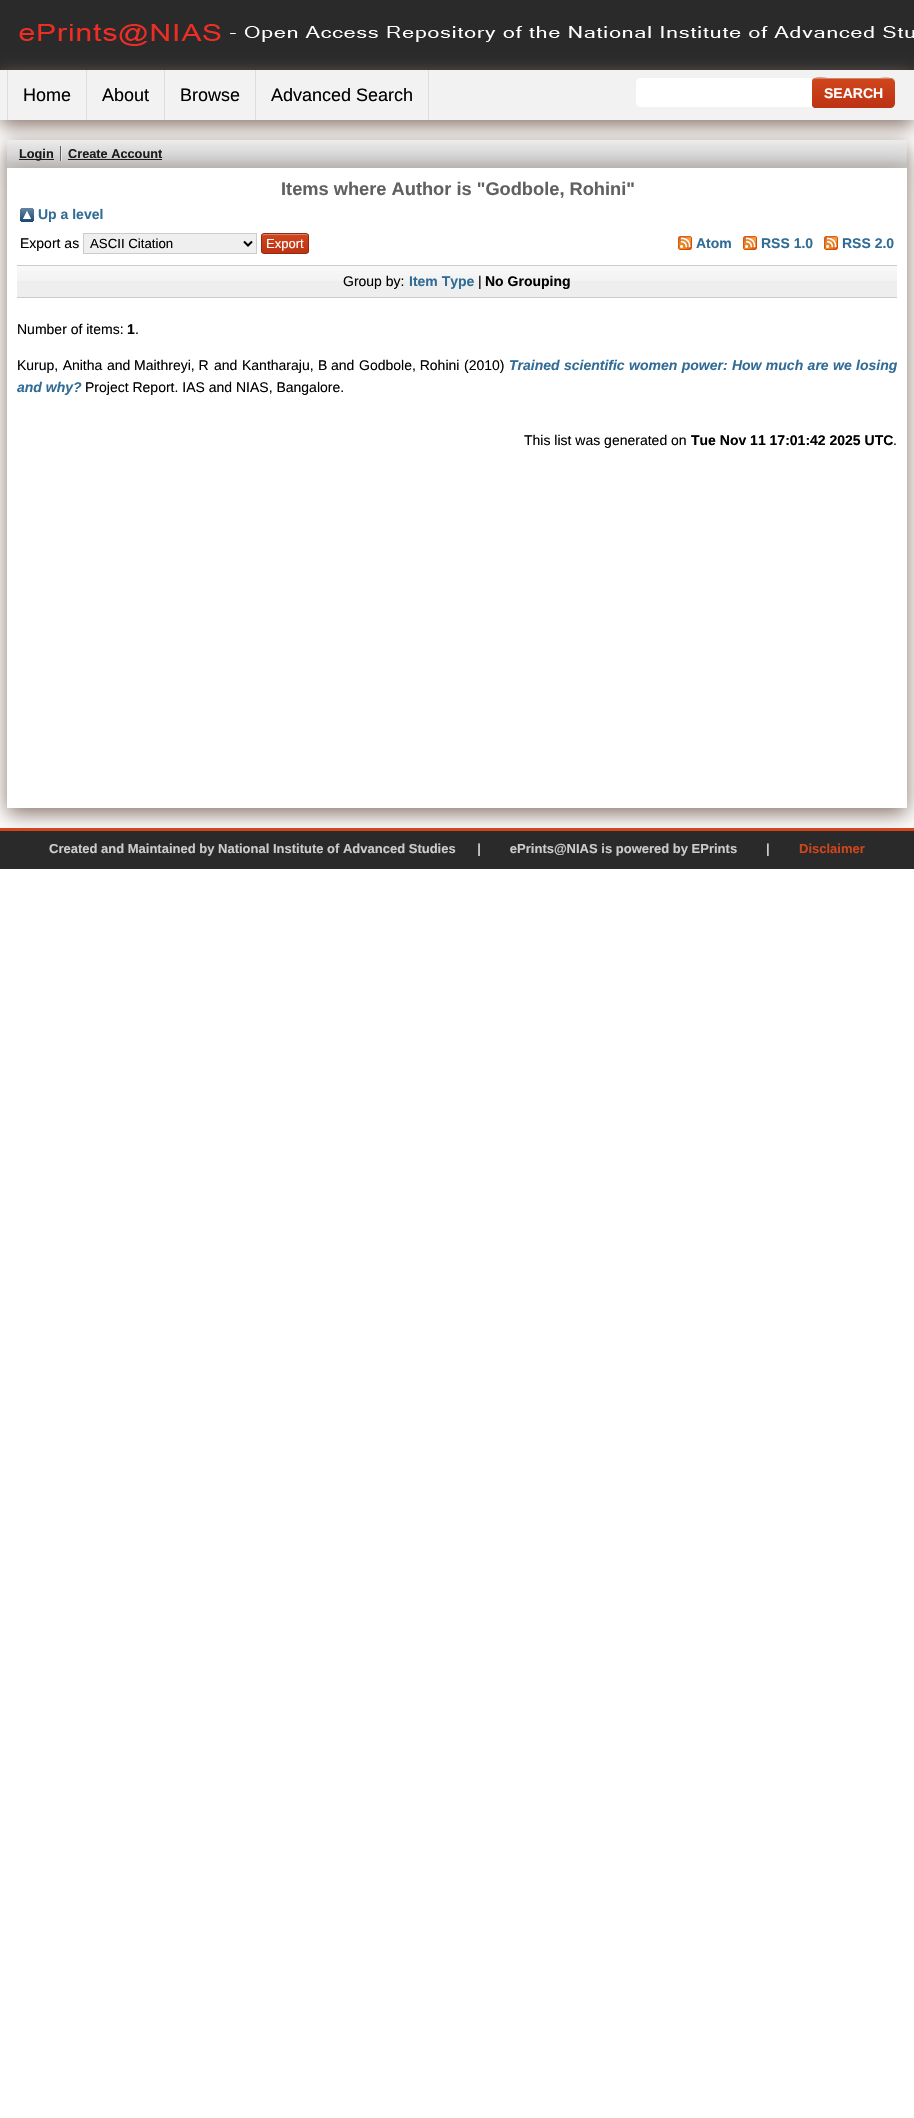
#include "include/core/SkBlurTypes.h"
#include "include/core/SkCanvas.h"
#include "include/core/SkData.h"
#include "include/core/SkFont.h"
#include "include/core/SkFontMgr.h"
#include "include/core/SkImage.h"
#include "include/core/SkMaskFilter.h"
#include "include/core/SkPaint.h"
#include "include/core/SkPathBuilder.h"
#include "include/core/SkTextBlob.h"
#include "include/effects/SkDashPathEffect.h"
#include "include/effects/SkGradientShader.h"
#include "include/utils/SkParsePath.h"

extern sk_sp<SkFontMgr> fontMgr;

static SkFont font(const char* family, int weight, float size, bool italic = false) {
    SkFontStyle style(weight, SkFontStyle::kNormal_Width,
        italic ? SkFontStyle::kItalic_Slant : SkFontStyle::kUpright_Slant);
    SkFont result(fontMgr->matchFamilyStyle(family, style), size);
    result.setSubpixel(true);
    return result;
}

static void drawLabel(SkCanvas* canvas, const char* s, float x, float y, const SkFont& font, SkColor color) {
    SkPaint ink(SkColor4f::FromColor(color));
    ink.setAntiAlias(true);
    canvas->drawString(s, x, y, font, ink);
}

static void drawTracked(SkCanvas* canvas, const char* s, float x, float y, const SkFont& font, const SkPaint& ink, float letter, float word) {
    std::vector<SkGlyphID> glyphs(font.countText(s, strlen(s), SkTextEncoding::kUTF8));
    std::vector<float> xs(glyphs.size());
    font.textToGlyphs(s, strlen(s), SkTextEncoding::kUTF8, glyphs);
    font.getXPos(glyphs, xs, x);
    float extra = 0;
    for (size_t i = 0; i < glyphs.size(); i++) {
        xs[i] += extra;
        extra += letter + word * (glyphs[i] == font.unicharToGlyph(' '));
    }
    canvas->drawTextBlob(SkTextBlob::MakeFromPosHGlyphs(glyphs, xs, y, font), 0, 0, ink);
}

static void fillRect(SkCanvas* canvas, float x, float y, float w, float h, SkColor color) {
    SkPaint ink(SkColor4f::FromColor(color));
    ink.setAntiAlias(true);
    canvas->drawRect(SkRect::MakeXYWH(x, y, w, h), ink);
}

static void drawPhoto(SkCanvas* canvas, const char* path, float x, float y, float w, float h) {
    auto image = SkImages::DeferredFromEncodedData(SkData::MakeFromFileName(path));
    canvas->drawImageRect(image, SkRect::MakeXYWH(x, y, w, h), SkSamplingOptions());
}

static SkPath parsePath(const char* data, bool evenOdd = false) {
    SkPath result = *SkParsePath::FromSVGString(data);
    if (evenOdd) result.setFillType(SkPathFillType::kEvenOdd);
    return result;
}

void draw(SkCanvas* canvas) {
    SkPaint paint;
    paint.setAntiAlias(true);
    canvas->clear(0xFFFFFFFF);
    fillRect(canvas, 0, 0, 914, 70, 0xFF2A2A2A);
    paint.setColor(0xFF877368);
    paint.setMaskFilter(SkMaskFilter::MakeBlur(kNormal_SkBlurStyle, 10));
    canvas->drawRect(SkRect::MakeXYWH(0, 76, 914, 50), paint);
    paint.setMaskFilter(nullptr);
    drawPhoto(canvas, "assets/img1.png", 19, 24, 895, 22);
    fillRect(canvas, 0, 70, 914, 50, 0xFFF2F2F2);
    paint.setMaskFilter(SkMaskFilter::MakeBlur(kNormal_SkBlurStyle, 10));
    canvas->drawRect(SkRect::MakeXYWH(7, 146, 900, 33), paint);
    paint.setMaskFilter(nullptr);
    fillRect(canvas, 86, 70, 1, 50, 0xFFDDDDDD);
    fillRect(canvas, 7, 70, 1, 50, 0xFFDDDDDD);
    SkFont font1 = font("Liberation Sans", 400, 18);
    drawLabel(canvas, "Home", 23, 101, font1, 0xFF000000);
    fillRect(canvas, 164, 70, 1, 50, 0xFFDDDDDD);
    drawLabel(canvas, "About", 102, 101, font1, 0xFF000000);
    fillRect(canvas, 255, 70, 1, 50, 0xFFDDDDDD);
    drawLabel(canvas, "Browse", 180, 101, font1, 0xFF000000);
    fillRect(canvas, 428, 70, 1, 50, 0xFFDDDDDD);
    drawLabel(canvas, "Advanced Search", 271, 101, font1, 0xFF000000);
    fillRect(canvas, 7, 140, 900, 28, 0xFFCCCCCC);
    drawPhoto(canvas, "assets/img2.png", 7, 140, 900, 22);
    paint.setColor(0xFFFFFFFF);
    canvas->drawPath(parsePath("M641 78H812V107H641C638 107 636 105 636 102V83C636 80 638 78 641 78Z"), paint);
    {
        const SkColor colors[] = {0xFFD0451B, 0xFFBC3315};
        const float stops[] = {0.05f, 1};
        const SkPoint ends[] = {{854, 78}, {854, 108}};
        paint.setShader(SkGradientShader::MakeLinear(ends, colors, stops, 2, SkTileMode::kClamp));
        paint.setAlpha(255);
    }
    canvas->drawPath(parsePath("M815 78H890C893 78 895 80 895 83V103C895 106 893 108 890 108H815C813.5 108 812 106.5 812 105V81C812 79.5 813.5 78 815 78Z"), paint);
    paint.setShader(nullptr);
    paint.setColor(0xFFCF866C);
    canvas->drawPath(parsePath("M815 79H890C893 79 895 81 895 84C895 75 883 78 878 78H828C824 78 812 75 812 82C812 80 813 79 815 79Z"), paint);
    SkFont font2 = font("Liberation Sans", 700, 14);
    drawLabel(canvas, "SEARCH", 824, 98, font2, 0xFFFFFFFF);
    paint.setColor(0xFF877368);
    paint.setMaskFilter(SkMaskFilter::MakeBlur(kNormal_SkBlurStyle, 10));
    canvas->drawRect(SkRect::MakeXYWH(7, 174, 900, 640), paint);
    paint.setMaskFilter(nullptr);
    fillRect(canvas, 19, 159, 35, 1, 0xFF1C1C1C);
    SkFont font3 = font("Liberation Sans", 700, 12.75f);
    drawLabel(canvas, "Login", 19, 158, font3, 0xFF1C1C1C);
    fillRect(canvas, 60, 146, 1, 15, 0xFF606060);
    drawLabel(canvas, "Create Account", 68, 158, font3, 0xFF1C1C1C);
    fillRect(canvas, 61, 146, 1, 15, 0xFFE8E8E8);
    fillRect(canvas, 68, 159, 94, 1, 0xFF1C1C1C);
    fillRect(canvas, 7, 168, 900, 640, 0xFFFFFFFF);
    SkFont font4 = font("Liberation Sans", 700, 18.25f);
    drawLabel(canvas, "Items where Author is \"Godbole, Rohini\"", 281, 195, font4, 0xFF606060);
    drawPhoto(canvas, "assets/img3.png", 20, 208, 14, 14);
    drawLabel(canvas, "Up a level", 38, 219, font2, 0xFF316C96);
    SkFont font5 = font("Liberation Sans", 400, 14);
    drawLabel(canvas, "Export as", 20, 248, font5, 0xFF000000);
    paint.setColor(0xFFEFEFEF);
    canvas->drawRect(SkRect::MakeXYWH(83.5f, 233.5f, 173, 20), paint);
    paint.setStroke(true);
    paint.setStrokeWidth(1);
    paint.setColor(0xFFCCCCCC);
    canvas->drawRect(SkRect::MakeXYWH(83.5f, 233.5f, 173, 20), paint);
    paint.setStrokeWidth(2);
    paint.setColor(0xFF000000);
    canvas->drawPath(parsePath("M244 241.5L248 245.5L252 241.5"), paint);
    SkFont font6 = font("Liberation Sans", 400, 13.25f);
    drawLabel(canvas, "ASCII Citation", 90, 248, font6, 0xFF000000);
    canvas->save();
    canvas->clipPath(parsePath("M264 233H306C307.5 233 309 234.5 309 236V251C309 252.5 307.5 254 306 254H264C262.5 254 261 252.5 261 251V236C261 234.5 262.5 233 264 233Z"), true);
    paint.setStroke(false);
    {
        const SkColor colors[] = {0xFFD0451B, 0xFFBC3315};
        const float stops[] = {0.05f, 1};
        const SkPoint ends[] = {{285, 234}, {285, 253}};
        paint.setShader(SkGradientShader::MakeLinear(ends, colors, stops, 2, SkTileMode::kClamp));
        paint.setAlpha(255);
    }
    canvas->drawRect(SkRect::MakeXYWH(261, 234, 48, 19), paint);
    canvas->restore();
    paint.setShader(nullptr);
    paint.setColor(0xFFCF866C);
    canvas->drawPath(parsePath("M264 235H306C307 235 308 236 308 237C308 232 303 234 299 234H271C267 234 262 232 262 237C262 236 263 235 264 235Z"), paint);
    paint.setStroke(true);
    paint.setStrokeWidth(1);
    paint.setColor(0xFF942911);
    canvas->drawRoundRect(SkRect::MakeXYWH(261.5f, 233.5f, 47, 20), 2.5f, 2.5f, paint);
    SkFont font7 = font("Liberation Sans", 400, 13);
    drawLabel(canvas, "Export", 266, 248, font7, 0xFFFFFFFF);
    drawPhoto(canvas, "assets/img4.png", 678, 236, 14, 14);
    drawLabel(canvas, "Atom", 696, 248, font2, 0xFF316C96);
    drawPhoto(canvas, "assets/img4.png", 743, 236, 14, 14);
    drawLabel(canvas, "RSS 1.0", 761, 248, font2, 0xFF316C96);
    drawPhoto(canvas, "assets/img4.png", 824, 236, 14, 14);
    drawLabel(canvas, "RSS 2.0", 842, 248, font2, 0xFF316C96);
    fillRect(canvas, 17, 266, 880, 31, 0xFFEEEEEE);
    drawPhoto(canvas, "assets/img5.png", 17, 266, 880, 15);
    fillRect(canvas, 17, 265, 880, 1, 0xFFCCCCCC);
    fillRect(canvas, 17, 297, 880, 1, 0xFFCCCCCC);
    drawLabel(canvas, "Group by:", 343, 286, font5, 0xFF000000);
    drawLabel(canvas, "Item Type", 409, 286, font2, 0xFF316C96);
    drawLabel(canvas, "|", 478, 286, font5, 0xFF000000);
    drawLabel(canvas, "No Grouping", 485, 286, font2, 0xFF000000);
    drawLabel(canvas, "Number of items:", 17, 334, font5, 0xFF000000);
    drawLabel(canvas, "1", 127, 334, font2, 0xFF000000);
    drawLabel(canvas, ".", 135, 334, font5, 0xFF000000);
    paint.setStroke(false);
    paint.setColor(0xFF000000);
    drawTracked(canvas, "Kurup, Anitha", 17, 370, font5, paint, 0, 0.5f);
    drawLabel(canvas, "and", 107, 370, font5, 0xFF000000);
    drawLabel(canvas, "Maithreyi, R", 134, 370, font5, 0xFF000000);
    drawLabel(canvas, "and", 214, 370, font5, 0xFF000000);
    drawTracked(canvas, "Kantharaju, B", 242, 370, font5, paint, 0, 0.5f);
    drawLabel(canvas, "and", 331, 370, font5, 0xFF000000);
    drawLabel(canvas, "Godbole, Rohini", 359, 370, font5, 0xFF000000);
    drawLabel(canvas, "(2010)", 464, 370, font5, 0xFF000000);
    SkFont font8 = font("Liberation Sans", 700, 14, true);
    paint.setColor(0xFF316C96);
    drawTracked(canvas, "Trained scientific women power: How much are we losing", 509, 370, font8, paint, 0, 0.5f);
    drawLabel(canvas, "and why?", 17, 392, font8, 0xFF316C96);
    drawLabel(canvas, "Project Report. IAS and NIAS, Bangalore.", 85, 392, font5, 0xFF000000);
    drawLabel(canvas, "This list was generated on", 524, 445, font5, 0xFF000000);
    drawLabel(canvas, "Tue Nov 11 17:01:42 2025 UTC", 691, 445, font2, 0xFF000000);
    drawLabel(canvas, ".", 893, 445, font5, 0xFF000000);
    fillRect(canvas, 0, 831, 914, 38, 0xFF2A2A2A);
    fillRect(canvas, 0, 828, 914, 3, 0xFFD0451B);
    SkFont font9 = font("Liberation Sans", 700, 13);
    drawLabel(canvas, "Created and Maintained by National Institute of Advanced Studies      |        ePrints@NIAS is powered by EPrints        |", 49, 853, font9, 0xFFCCCCCC);
    drawLabel(canvas, "Disclaimer", 799, 853, font9, 0xFFD0451B);
}
